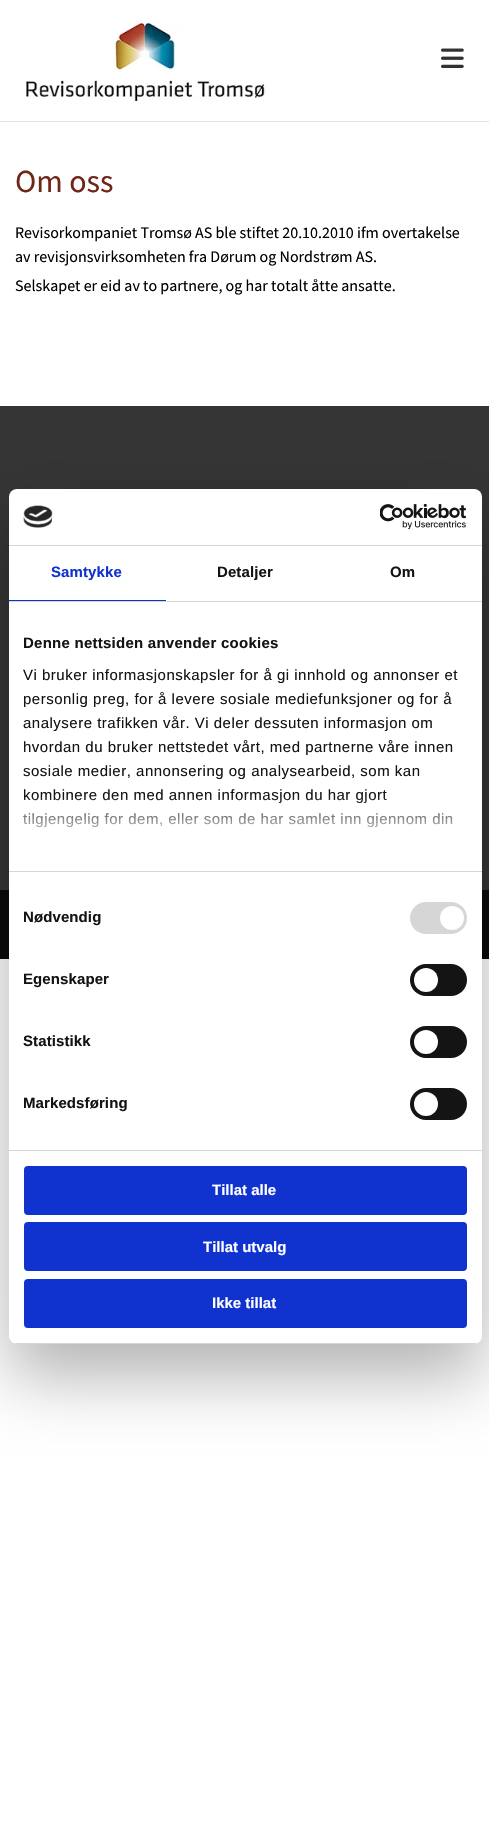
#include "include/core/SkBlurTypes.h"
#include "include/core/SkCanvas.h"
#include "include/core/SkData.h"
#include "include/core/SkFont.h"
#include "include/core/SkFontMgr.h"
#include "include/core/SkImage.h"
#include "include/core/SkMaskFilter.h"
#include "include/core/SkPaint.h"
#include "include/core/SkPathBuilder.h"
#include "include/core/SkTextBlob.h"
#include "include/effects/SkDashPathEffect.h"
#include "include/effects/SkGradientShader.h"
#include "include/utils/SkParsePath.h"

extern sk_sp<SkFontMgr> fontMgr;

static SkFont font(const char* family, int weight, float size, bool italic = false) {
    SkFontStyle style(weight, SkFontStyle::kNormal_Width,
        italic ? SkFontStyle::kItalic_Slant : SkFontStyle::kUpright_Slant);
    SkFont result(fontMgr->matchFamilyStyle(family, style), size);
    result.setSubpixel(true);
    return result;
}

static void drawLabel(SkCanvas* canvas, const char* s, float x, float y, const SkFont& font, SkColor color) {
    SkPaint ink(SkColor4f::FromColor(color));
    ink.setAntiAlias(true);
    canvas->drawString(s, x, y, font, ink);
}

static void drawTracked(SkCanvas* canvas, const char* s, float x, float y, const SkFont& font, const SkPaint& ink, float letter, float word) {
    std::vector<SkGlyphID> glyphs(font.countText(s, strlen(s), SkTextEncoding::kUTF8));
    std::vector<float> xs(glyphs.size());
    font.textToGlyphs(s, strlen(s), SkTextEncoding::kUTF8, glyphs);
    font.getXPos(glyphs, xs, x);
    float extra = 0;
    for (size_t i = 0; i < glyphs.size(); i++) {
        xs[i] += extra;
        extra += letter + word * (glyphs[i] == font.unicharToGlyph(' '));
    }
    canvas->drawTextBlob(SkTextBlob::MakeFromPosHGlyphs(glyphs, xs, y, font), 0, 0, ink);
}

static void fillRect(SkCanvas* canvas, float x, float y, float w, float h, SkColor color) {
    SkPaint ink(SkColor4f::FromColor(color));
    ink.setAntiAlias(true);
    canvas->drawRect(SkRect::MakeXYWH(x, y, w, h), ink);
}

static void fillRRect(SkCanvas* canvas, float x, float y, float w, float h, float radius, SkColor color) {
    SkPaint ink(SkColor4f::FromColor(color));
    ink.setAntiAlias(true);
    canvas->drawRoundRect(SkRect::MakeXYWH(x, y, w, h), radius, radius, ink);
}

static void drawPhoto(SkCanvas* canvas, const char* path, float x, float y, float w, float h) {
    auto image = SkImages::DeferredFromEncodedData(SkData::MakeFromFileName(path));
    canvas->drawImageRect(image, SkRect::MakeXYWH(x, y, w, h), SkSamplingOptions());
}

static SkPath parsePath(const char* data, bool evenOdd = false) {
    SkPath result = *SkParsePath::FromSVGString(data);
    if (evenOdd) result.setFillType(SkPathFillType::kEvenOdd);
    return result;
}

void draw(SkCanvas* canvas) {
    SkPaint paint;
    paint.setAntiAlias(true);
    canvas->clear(0xFFFFFFFF);
    fillRect(canvas, 0, 121, 489, 1, 0xFFE3E3E3);
    drawPhoto(canvas, "assets/img1.png", 26, 20, 241, 81);
    drawPhoto(canvas, "assets/img2.png", 441, 48, 23, 20);
    SkFont font1 = font("Source Sans Pro", 400, 32);
    drawLabel(canvas, "Om oss", 15, 192, font1, 0xFF712617);
    SkFont font2 = font("Source Sans Pro", 400, 16);
    drawLabel(canvas, "Revisorkompaniet Tromsø AS ble stiftet 20.10.2010 ifm overtakelse", 15, 238, font2, 0xFF000000);
    drawLabel(canvas, "av revisjonsvirksomheten fra Dørum og Nordstrøm AS.", 15, 262, font2, 0xFF000000);
    drawLabel(canvas, "Selskapet er eid av to partnere, og har totalt åtte ansatte.", 15, 291, font2, 0xFF000000);
    fillRect(canvas, 0, 406, 489, 484, 0xFF353535);
    fillRect(canvas, 0, 890, 489, 69, 0xFF0A0A0A);
    paint.setColor(0x4D000000);
    paint.setMaskFilter(SkMaskFilter::MakeBlur(kNormal_SkBlurStyle, 34));
    canvas->drawRoundRect(SkRect::MakeXYWH(9, 521, 473, 855), 8, 8, paint);
    paint.setMaskFilter(nullptr);
    fillRRect(canvas, 9, 489, 473, 855, 8, 0xFFFFFFFF);
    fillRect(canvas, 9, 545, 473, 1, 0xFFD6D6D6);
    drawPhoto(canvas, "assets/img3.png", 23, 505, 30, 23);
    drawPhoto(canvas, "assets/img4.png", 380, 504, 87, 26);
    fillRect(canvas, 9, 601, 473, 1, 0xFFD6D6D6);
    fillRect(canvas, 9, 600, 157, 1, 0xFF1032CF);
    SkFont font3 = font("Liberation Sans", 700, 15);
    paint.setColor(0xFF1032CF);
    drawTracked(canvas, "Samtykke", 51, 577, font3, paint, 0.1f, 0);
    paint.setColor(0xFF141414);
    drawTracked(canvas, "Detaljer", 217, 577, font3, paint, 0.1f, 0);
    drawTracked(canvas, "Om", 390, 577, font3, paint, 0.1f, 0);
    fillRect(canvas, 9, 871, 473, 1, 0xFFD6D6D6);
    drawTracked(canvas, "Denne nettsiden anvender cookies", 23, 648, font3, paint, 0.25f, 0);
    SkFont font4 = font("Liberation Sans", 400, 15);
    drawTracked(canvas, "Vi bruker informasjonskapsler for å gi innhold og annonser et", 23, 680, font4, paint, 0.5f, 0);
    drawTracked(canvas, "personlig preg, for å levere sosiale mediefunksjoner og for å", 23, 704, font4, paint, 0.5f, 0);
    drawTracked(canvas, "analysere trafikken vår. Vi deler dessuten informasjon om", 23, 728, font4, paint, 0.5f, 0);
    drawTracked(canvas, "hvordan du bruker nettstedet vårt, med partnerne våre innen", 23, 752, font4, paint, 0.5f, 0);
    drawTracked(canvas, "sosiale medier, annonsering og analysearbeid, som kan", 23, 776, font4, paint, 0.5f, 0);
    drawTracked(canvas, "kombinere den med annen informasjon du har gjort", 23, 800, font4, paint, 0.5f, 0);
    drawTracked(canvas, "tilgjengelig for dem, eller som de har samlet inn gjennom din", 23, 824, font4, paint, 0.5f, 0);
    {
        const SkColor colors[] = {0xFFFFFFFF, 0xCCFFFFFF, 0x00FFFFFF};
        const float stops[] = {0, 0.5f, 1};
        const SkPoint ends[] = {{239, 871}, {239, 796}};
        paint.setShader(SkGradientShader::MakeLinear(ends, colors, stops, 3, SkTileMode::kClamp));
        paint.setAlpha(255);
    }
    canvas->drawRect(SkRect::MakeXYWH(23, 797, 430, 31), paint);
    fillRect(canvas, 9, 1150, 473, 1, 0xFFD6D6D6);
    paint.setShader(nullptr);
    paint.setColor(0xFF141414);
    drawTracked(canvas, "Nødvendig", 23, 922, font3, paint, 0.1f, 0);
    fillRRect(canvas, 410, 902, 57, 32, 16, 0xFFD6D6D6);
    paint.setColor(0xFFFFFFFF);
    canvas->drawCircle(452, 918, 12, paint);
    paint.setColor(0xFF141414);
    drawTracked(canvas, "Egenskaper", 23, 984, font3, paint, 0.1f, 0);
    fillRRect(canvas, 410, 964, 57, 32, 16, 0xFF141414);
    paint.setColor(0xFFFFFFFF);
    canvas->drawCircle(426, 980, 12, paint);
    paint.setColor(0xFF141414);
    drawTracked(canvas, "Statistikk", 23, 1046, font3, paint, 0.1f, 0);
    fillRRect(canvas, 410, 1026, 57, 32, 16, 0xFF141414);
    paint.setColor(0xFFFFFFFF);
    canvas->drawCircle(426, 1042, 12, paint);
    paint.setColor(0xFF141414);
    drawTracked(canvas, "Markedsføring", 23, 1108, font3, paint, 0.1f, 0);
    fillRRect(canvas, 410, 1088, 57, 32, 16, 0xFF141414);
    paint.setColor(0xFFFFFFFF);
    canvas->drawCircle(426, 1104, 12, paint);
    canvas->save();
    canvas->clipPath(parsePath("M17 489H474C478.5 489 482 492.5 482 497V1336C482 1340.5 478.5 1344 474 1344H17C12.5 1344 9 1340.5 9 1336V497C9 492.5 12.5 489 17 489Z"), true);
    fillRect(canvas, 9, 1343, 473, 1, 0xFFD6D6D6);
    canvas->restore();
    paint.setColor(0xFF1032CF);
    canvas->drawRoundRect(SkRect::MakeXYWH(25, 1167, 441, 47), 3, 3, paint);
    paint.setStroke(true);
    paint.setStrokeWidth(2);
    canvas->drawRoundRect(SkRect::MakeXYWH(25, 1167, 441, 47), 3, 3, paint);
    drawLabel(canvas, "Tillat alle", 212, 1195, font3, 0xFFFFFFFF);
    paint.setStroke(false);
    canvas->drawRoundRect(SkRect::MakeXYWH(25, 1223, 441, 47), 3, 3, paint);
    paint.setStroke(true);
    canvas->drawRoundRect(SkRect::MakeXYWH(25, 1223, 441, 47), 3, 3, paint);
    drawLabel(canvas, "Tillat utvalg", 203, 1252, font3, 0xFFFFFFFF);
    paint.setStroke(false);
    canvas->drawRoundRect(SkRect::MakeXYWH(25, 1280, 441, 47), 3, 3, paint);
    paint.setStroke(true);
    canvas->drawRoundRect(SkRect::MakeXYWH(25, 1280, 441, 47), 3, 3, paint);
    drawLabel(canvas, "Ikke tillat", 212, 1308, font3, 0xFFFFFFFF);
}
